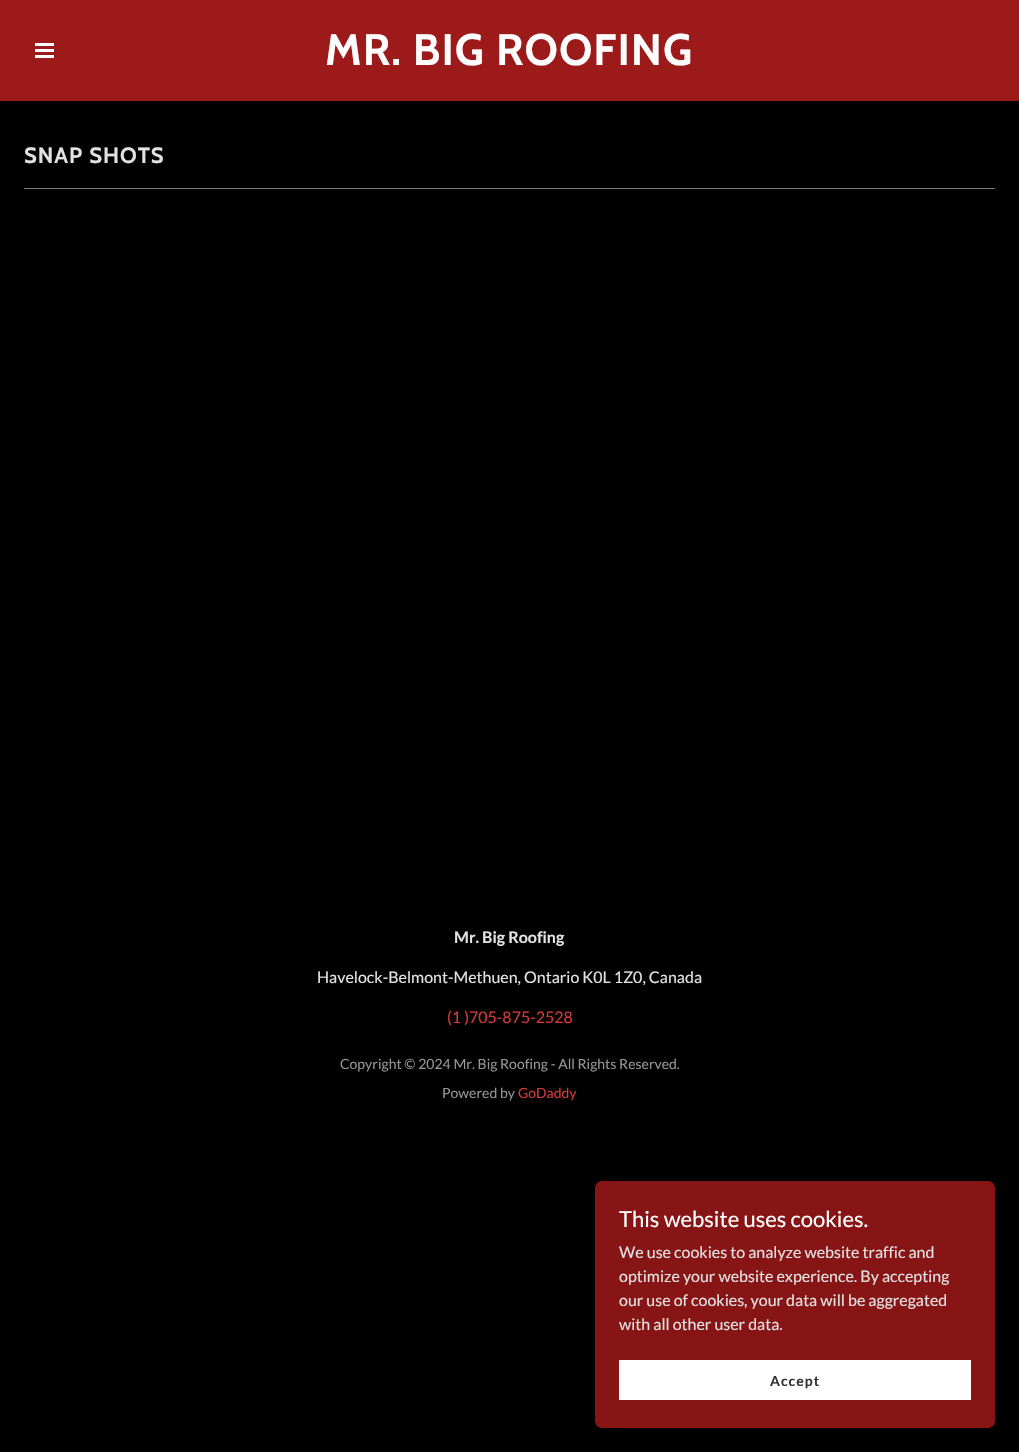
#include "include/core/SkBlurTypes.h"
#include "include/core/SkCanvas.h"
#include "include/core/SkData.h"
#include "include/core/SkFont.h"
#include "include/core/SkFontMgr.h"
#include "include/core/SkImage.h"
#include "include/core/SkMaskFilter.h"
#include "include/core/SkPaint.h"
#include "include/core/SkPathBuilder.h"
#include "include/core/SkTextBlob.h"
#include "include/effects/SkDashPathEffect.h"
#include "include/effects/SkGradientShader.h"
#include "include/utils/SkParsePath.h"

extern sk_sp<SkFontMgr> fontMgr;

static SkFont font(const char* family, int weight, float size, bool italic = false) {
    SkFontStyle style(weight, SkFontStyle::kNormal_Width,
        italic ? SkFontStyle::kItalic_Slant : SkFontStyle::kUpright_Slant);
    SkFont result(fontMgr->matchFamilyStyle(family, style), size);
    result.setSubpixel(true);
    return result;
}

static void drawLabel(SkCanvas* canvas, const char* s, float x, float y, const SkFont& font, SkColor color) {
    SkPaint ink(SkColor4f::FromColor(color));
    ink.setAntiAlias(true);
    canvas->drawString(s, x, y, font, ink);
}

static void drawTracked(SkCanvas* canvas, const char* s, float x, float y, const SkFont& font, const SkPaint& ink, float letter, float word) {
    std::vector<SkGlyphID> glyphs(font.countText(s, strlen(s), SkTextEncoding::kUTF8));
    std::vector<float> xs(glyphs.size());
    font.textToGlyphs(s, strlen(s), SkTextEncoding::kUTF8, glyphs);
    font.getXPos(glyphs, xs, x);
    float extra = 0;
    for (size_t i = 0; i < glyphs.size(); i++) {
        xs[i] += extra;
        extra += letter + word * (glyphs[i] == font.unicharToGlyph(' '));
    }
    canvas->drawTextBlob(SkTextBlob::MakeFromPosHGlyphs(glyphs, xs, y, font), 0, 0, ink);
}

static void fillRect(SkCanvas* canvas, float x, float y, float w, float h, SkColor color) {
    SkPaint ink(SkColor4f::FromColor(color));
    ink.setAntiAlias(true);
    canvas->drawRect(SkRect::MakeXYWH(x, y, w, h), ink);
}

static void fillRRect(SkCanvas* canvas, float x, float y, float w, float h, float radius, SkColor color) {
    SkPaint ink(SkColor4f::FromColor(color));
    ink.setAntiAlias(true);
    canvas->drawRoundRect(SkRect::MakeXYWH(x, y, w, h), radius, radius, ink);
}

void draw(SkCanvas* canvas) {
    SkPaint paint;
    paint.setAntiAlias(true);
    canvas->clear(0xFF000000);
    fillRect(canvas, 0, 0, 1019, 101, 0xFF9C1A1A);
    fillRect(canvas, 35, 43, 19, 3, 0xFFFFFFFF);
    fillRect(canvas, 35, 49, 19, 3, 0xFFFFFFFF);
    fillRect(canvas, 35, 55, 19, 3, 0xFFFFFFFF);
    SkFont font1 = font("Cabin", 700, 44);
    paint.setColor(0xFFFFFFFF);
    drawTracked(canvas, "MR. BIG ROOFING", 325, 65, font1, paint, 1, 0);
    SkFont font2 = font("Cabin", 700, 22);
    paint.setColor(0xFFE2E2E2);
    drawTracked(canvas, "SNAP SHOTS", 24, 163, font2, paint, 1, 0);
    fillRect(canvas, 24, 188, 971, 1, 0xFF777777);
    SkFont font3 = font("Lato", 700, 16);
    drawLabel(canvas, "Mr. Big Roofing", 454, 943, font3, 0xFFE2E2E2);
    SkFont font4 = font("Lato", 400, 16);
    drawLabel(canvas, "Havelock-Belmont-Methuen, Ontario K0L 1Z0, Canada", 317, 983, font4, 0xFFE2E2E2);
    drawLabel(canvas, "(1 )705-875-2528", 447, 1023, font4, 0xFFD63A3A);
    SkFont font5 = font("Lato", 400, 14);
    drawLabel(canvas, "Copyright © 2024 Mr. Big Roofing - All Rights Reserved.", 340, 1069, font5, 0xFF969696);
    drawLabel(canvas, "Powered by", 442, 1098, font5, 0xFF969696);
    drawLabel(canvas, "GoDaddy", 518, 1098, font5, 0xFFD63A3A);
    fillRRect(canvas, 595, 1181, 400, 247, 7, 0xFF871515);
    SkFont font6 = font("Lato", 400, 22);
    drawLabel(canvas, "This website uses cookies.", 619, 1227, font6, 0xFFFFFFFF);
    drawLabel(canvas, "We use cookies to analyze website traffic and", 619, 1258, font4, 0xFFE2E2E2);
    drawLabel(canvas, "optimize your website experience. By accepting", 619, 1282, font4, 0xFFE2E2E2);
    drawLabel(canvas, "our use of cookies, your data will be aggregated", 619, 1306, font4, 0xFFE2E2E2);
    drawLabel(canvas, "with all other user data.", 619, 1330, font4, 0xFFE2E2E2);
    fillRect(canvas, 619, 1360, 352, 40, 0xFFFFFFFF);
    SkFont font7 = font("Lato", 700, 14);
    paint.setColor(0xFF303030);
    drawTracked(canvas, "Accept", 770, 1386, font7, paint, 1, 0);
}
